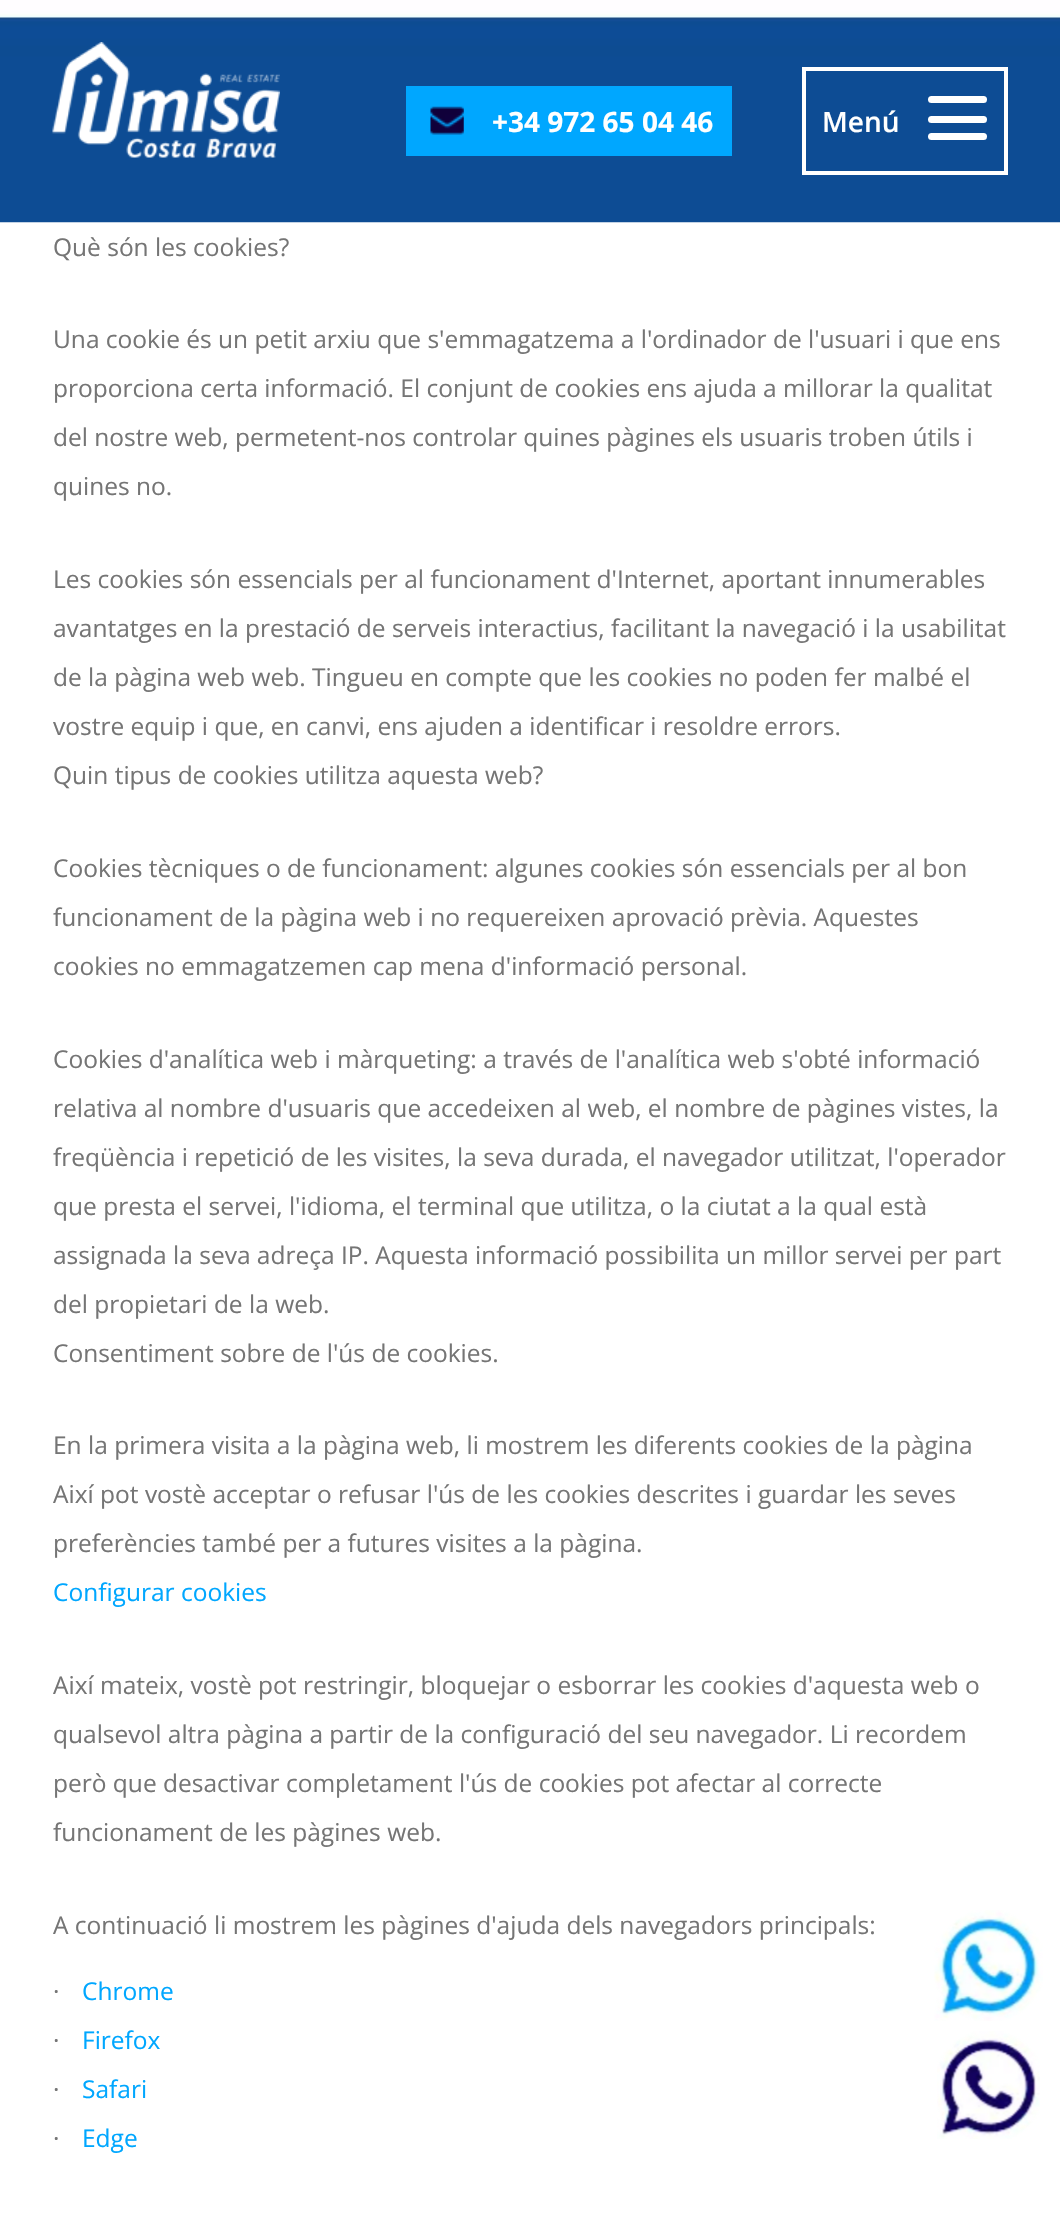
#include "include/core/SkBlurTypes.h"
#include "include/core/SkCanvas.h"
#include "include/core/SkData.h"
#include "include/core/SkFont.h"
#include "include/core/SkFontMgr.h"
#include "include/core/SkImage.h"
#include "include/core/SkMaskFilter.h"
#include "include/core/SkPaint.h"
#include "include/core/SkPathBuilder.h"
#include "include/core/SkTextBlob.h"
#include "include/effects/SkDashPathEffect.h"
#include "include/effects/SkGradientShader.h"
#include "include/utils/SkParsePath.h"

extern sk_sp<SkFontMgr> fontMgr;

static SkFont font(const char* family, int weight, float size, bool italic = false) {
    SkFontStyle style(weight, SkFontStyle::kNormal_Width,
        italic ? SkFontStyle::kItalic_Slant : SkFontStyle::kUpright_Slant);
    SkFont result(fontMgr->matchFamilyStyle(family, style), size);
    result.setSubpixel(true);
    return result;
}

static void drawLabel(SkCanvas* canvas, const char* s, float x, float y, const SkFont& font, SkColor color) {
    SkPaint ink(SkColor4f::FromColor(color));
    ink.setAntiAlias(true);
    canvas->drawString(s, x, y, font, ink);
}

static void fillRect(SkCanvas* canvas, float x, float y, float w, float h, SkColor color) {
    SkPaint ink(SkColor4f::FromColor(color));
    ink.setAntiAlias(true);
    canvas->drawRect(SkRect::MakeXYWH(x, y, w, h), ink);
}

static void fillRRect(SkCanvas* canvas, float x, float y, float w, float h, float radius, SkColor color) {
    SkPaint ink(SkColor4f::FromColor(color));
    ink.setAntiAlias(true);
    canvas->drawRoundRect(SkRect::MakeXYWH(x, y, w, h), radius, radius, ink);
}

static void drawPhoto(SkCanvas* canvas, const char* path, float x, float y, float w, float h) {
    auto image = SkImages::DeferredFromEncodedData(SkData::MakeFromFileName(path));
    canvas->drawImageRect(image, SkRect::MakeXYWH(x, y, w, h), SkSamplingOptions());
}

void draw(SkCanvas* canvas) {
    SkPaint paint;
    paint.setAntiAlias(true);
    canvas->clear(0xFFFFFFFF);
    drawPhoto(canvas, "assets/img1.png", 0, 0, 1060, 223);
    drawPhoto(canvas, "assets/img2.png", 52, 42, 228, 116);
    fillRect(canvas, 406, 86, 326, 70, 0xFF00A7FF);
    drawPhoto(canvas, "assets/img3.png", 430, 106, 34, 29);
    SkFont font1 = font("Open Sans", 700, 28);
    drawLabel(canvas, "+34 972 65 04 46", 492, 132, font1, 0xFFFFFFFF);
    paint.setStroke(true);
    paint.setStrokeWidth(4);
    paint.setColor(0xFFFFFFFF);
    canvas->drawRect(SkRect::MakeXYWH(804, 69, 202, 104), paint);
    SkFont font2 = font("Open Sans", 600, 28);
    drawLabel(canvas, "Menú", 822, 132, font2, 0xFFFFFFFF);
    fillRRect(canvas, 928, 96, 59, 7, 3.5f, 0xFFFFFFFF);
    fillRRect(canvas, 928, 116, 59, 7, 3.5f, 0xFFFFFFFF);
    fillRRect(canvas, 928, 133, 59, 7, 3.5f, 0xFFFFFFFF);
    SkFont font3 = font("Open Sans", 400, 24.5f);
    drawLabel(canvas, "Què són les cookies?", 53, 256, font3, 0xFF757575);
    drawLabel(canvas, "Una cookie és un petit arxiu que s'emmagatzema a l'ordinador de l'usuari i que ens", 53, 348, font3, 0xFF757575);
    drawLabel(canvas, "proporciona certa informació. El conjunt de cookies ens ajuda a millorar la qualitat", 53, 397, font3, 0xFF757575);
    drawLabel(canvas, "del nostre web, permetent-nos controlar quines pàgines els usuaris troben útils i", 53, 446, font3, 0xFF757575);
    drawLabel(canvas, "quines no.", 53, 495, font3, 0xFF757575);
    drawLabel(canvas, "Les cookies són essencials per al funcionament d'Internet, aportant innumerables", 53, 588, font3, 0xFF757575);
    drawLabel(canvas, "avantatges en la prestació de serveis interactius, facilitant la navegació i la usabilitat", 53, 637, font3, 0xFF757575);
    drawLabel(canvas, "de la pàgina web web. Tingueu en compte que les cookies no poden fer malbé el", 53, 686, font3, 0xFF757575);
    drawLabel(canvas, "vostre equip i que, en canvi, ens ajuden a identificar i resoldre errors.", 53, 735, font3, 0xFF757575);
    drawLabel(canvas, "Quin tipus de cookies utilitza aquesta web?", 53, 784, font3, 0xFF757575);
    drawLabel(canvas, "Cookies tècniques o de funcionament: algunes cookies són essencials per al bon", 53, 877, font3, 0xFF757575);
    drawLabel(canvas, "funcionament de la pàgina web i no requereixen aprovació prèvia. Aquestes", 53, 926, font3, 0xFF757575);
    drawLabel(canvas, "cookies no emmagatzemen cap mena d'informació personal.", 53, 975, font3, 0xFF757575);
    drawLabel(canvas, "Cookies d'analítica web i màrqueting: a través de l'analítica web s'obté informació", 53, 1068, font3, 0xFF757575);
    drawLabel(canvas, "relativa al nombre d'usuaris que accedeixen al web, el nombre de pàgines vistes, la", 53, 1117, font3, 0xFF757575);
    drawLabel(canvas, "freqüència i repetició de les visites, la seva durada, el navegador utilitzat, l'operador", 53, 1166, font3, 0xFF757575);
    drawLabel(canvas, "que presta el servei, l'idioma, el terminal que utilitza, o la ciutat a la qual està", 53, 1215, font3, 0xFF757575);
    drawLabel(canvas, "assignada la seva adreça IP. Aquesta informació possibilita un millor servei per part", 53, 1264, font3, 0xFF757575);
    drawLabel(canvas, "del propietari de la web.", 53, 1313, font3, 0xFF757575);
    drawLabel(canvas, "Consentiment sobre de l'ús de cookies.", 53, 1362, font3, 0xFF757575);
    drawLabel(canvas, "En la primera visita a la pàgina web, li mostrem les diferents cookies de la pàgina", 53, 1454, font3, 0xFF757575);
    drawLabel(canvas, "Així pot vostè acceptar o refusar l'ús de les cookies descrites i guardar les seves", 53, 1503, font3, 0xFF757575);
    drawLabel(canvas, "preferències també per a futures visites a la pàgina.", 53, 1552, font3, 0xFF757575);
    drawLabel(canvas, "Configurar cookies", 53, 1601, font3, 0xFF00A7FF);
    drawLabel(canvas, "Així mateix, vostè pot restringir, bloquejar o esborrar les cookies d'aquesta web o", 53, 1694, font3, 0xFF757575);
    drawLabel(canvas, "qualsevol altra pàgina a partir de la configuració del seu navegador. Li recordem", 53, 1743, font3, 0xFF757575);
    drawLabel(canvas, "però que desactivar completament l'ús de cookies pot afectar al correcte", 53, 1792, font3, 0xFF757575);
    drawLabel(canvas, "funcionament de les pàgines web.", 53, 1841, font3, 0xFF757575);
    drawLabel(canvas, "A continuació li mostrem les pàgines d'ajuda dels navegadors principals:", 53, 1934, font3, 0xFF757575);
    drawLabel(canvas, "·", 53, 2000, font3, 0xFF757575);
    drawLabel(canvas, "Chrome", 82, 2000, font3, 0xFF00A7FF);
    drawLabel(canvas, "·", 53, 2049, font3, 0xFF757575);
    drawLabel(canvas, "Firefox", 82, 2049, font3, 0xFF00A7FF);
    drawLabel(canvas, "·", 53, 2098, font3, 0xFF757575);
    drawLabel(canvas, "Safari", 82, 2098, font3, 0xFF00A7FF);
    drawLabel(canvas, "·", 53, 2147, font3, 0xFF757575);
    drawLabel(canvas, "Edge", 82, 2147, font3, 0xFF00A7FF);
    drawPhoto(canvas, "assets/img4.png", 934, 1910, 109, 111);
    drawPhoto(canvas, "assets/img5.png", 937, 2031, 103, 108);
}
